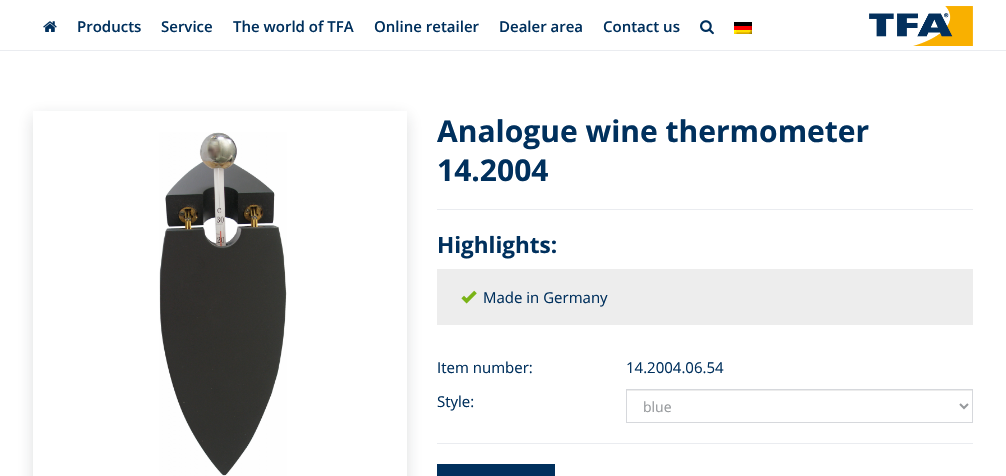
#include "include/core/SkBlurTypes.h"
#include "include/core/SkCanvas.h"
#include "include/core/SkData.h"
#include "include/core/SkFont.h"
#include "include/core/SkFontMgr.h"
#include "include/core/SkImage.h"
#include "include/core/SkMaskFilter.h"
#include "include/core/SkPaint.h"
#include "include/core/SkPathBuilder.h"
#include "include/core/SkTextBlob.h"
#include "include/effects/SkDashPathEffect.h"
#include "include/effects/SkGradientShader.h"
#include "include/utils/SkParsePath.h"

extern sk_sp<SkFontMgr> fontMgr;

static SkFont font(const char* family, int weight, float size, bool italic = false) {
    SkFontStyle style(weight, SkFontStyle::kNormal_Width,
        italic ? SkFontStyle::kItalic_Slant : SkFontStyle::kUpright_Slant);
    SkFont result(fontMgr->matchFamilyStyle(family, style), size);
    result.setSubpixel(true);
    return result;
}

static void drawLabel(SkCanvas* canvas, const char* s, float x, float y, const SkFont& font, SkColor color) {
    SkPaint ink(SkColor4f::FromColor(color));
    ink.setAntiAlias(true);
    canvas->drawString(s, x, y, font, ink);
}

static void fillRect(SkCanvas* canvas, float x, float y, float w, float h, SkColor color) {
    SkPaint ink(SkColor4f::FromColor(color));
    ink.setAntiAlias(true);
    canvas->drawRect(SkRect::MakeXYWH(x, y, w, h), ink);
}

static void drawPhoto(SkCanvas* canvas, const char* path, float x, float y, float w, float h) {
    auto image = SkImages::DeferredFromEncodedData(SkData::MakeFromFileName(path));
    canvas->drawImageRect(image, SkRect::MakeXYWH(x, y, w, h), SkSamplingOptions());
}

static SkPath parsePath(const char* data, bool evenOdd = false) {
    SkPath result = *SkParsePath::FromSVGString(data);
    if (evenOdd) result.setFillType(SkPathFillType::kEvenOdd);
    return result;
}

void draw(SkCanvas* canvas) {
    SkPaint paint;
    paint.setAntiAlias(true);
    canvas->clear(0xFFFFFFFF);
    fillRect(canvas, 0, 50, 1006, 1, 0xFFEAECF0);
    drawPhoto(canvas, "assets/img1.png", 43, 21, 14, 11);
    SkFont font1 = font("Open Sans", 600, 15);
    drawLabel(canvas, "Products", 77, 32, font1, 0xFF00305D);
    drawLabel(canvas, "Service", 161, 32, font1, 0xFF00305D);
    drawLabel(canvas, "The world of TFA", 233, 32, font1, 0xFF00305D);
    drawLabel(canvas, "Online retailer", 374, 32, font1, 0xFF00305D);
    drawLabel(canvas, "Dealer area", 499, 32, font1, 0xFF00305D);
    drawLabel(canvas, "Contact us", 603, 32, font1, 0xFF00305D);
    drawPhoto(canvas, "assets/img2.png", 700, 20, 14, 15);
    drawPhoto(canvas, "assets/img3.png", 734, 22, 18, 12);
    drawPhoto(canvas, "assets/img4.png", 869, 6, 104, 40);
    canvas->save();
    canvas->clipPath(parsePath("M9 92H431V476H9ZM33 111H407V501H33Z", true), true);
    paint.setColor(0x261E2328);
    paint.setMaskFilter(SkMaskFilter::MakeBlur(kNormal_SkBlurStyle, 7.5f));
    canvas->drawRect(SkRect::MakeXYWH(33, 116, 374, 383), paint);
    paint.setMaskFilter(nullptr);
    canvas->restore();
    drawPhoto(canvas, "assets/img5.png", 159, 132, 128, 344);
    SkFont font2 = font("Open Sans", 700, 30);
    drawLabel(canvas, "Analogue wine thermometer", 437, 142, font2, 0xFF00305D);
    drawLabel(canvas, "14.2004", 437, 181, font2, 0xFF00305D);
    fillRect(canvas, 437, 209, 536, 1, 0xFFEAECF0);
    SkFont font3 = font("Open Sans", 700, 22.5f);
    drawLabel(canvas, "Highlights:", 437, 253, font3, 0xFF00305D);
    fillRect(canvas, 437, 269, 536, 56, 0xFFEDEDED);
    drawPhoto(canvas, "assets/img6.png", 461, 290, 16, 14);
    SkFont font4 = font("Open Sans", 400, 15);
    drawLabel(canvas, "Made in Germany", 483, 303, font4, 0xFF00305D);
    drawLabel(canvas, "Item number:", 437, 373, font4, 0xFF00305D);
    drawLabel(canvas, "14.2004.06.54", 626, 373, font4, 0xFF00305D);
    drawLabel(canvas, "Style:", 437, 407, font4, 0xFF00305D);
    fillRect(canvas, 627, 390, 345, 1, 0xFFECECEC);
    paint.setStroke(true);
    paint.setStrokeWidth(1);
    paint.setColor(0xFFD6D8DC);
    canvas->drawRect(SkRect::MakeXYWH(626.5f, 389.5f, 346, 33), paint);
    paint.setStrokeWidth(2);
    paint.setColor(0xFF96999C);
    canvas->drawPath(parsePath("M960 404L964 408L968 404"), paint);
    SkFont font5 = font("Open Sans", 400, 14);
    drawLabel(canvas, "blue", 643, 412, font5, 0xFF96999C);
    fillRect(canvas, 437, 443, 536, 1, 0xFFEAECF0);
    fillRect(canvas, 437, 464, 118, 12, 0xFF00305D);
}
